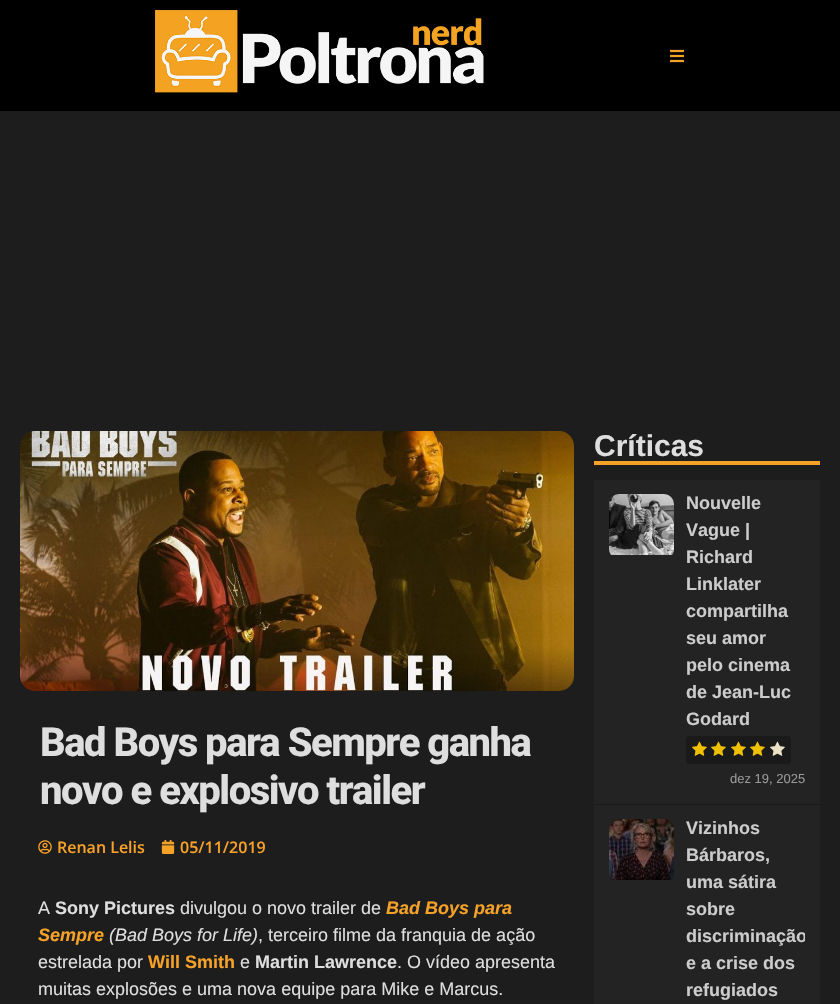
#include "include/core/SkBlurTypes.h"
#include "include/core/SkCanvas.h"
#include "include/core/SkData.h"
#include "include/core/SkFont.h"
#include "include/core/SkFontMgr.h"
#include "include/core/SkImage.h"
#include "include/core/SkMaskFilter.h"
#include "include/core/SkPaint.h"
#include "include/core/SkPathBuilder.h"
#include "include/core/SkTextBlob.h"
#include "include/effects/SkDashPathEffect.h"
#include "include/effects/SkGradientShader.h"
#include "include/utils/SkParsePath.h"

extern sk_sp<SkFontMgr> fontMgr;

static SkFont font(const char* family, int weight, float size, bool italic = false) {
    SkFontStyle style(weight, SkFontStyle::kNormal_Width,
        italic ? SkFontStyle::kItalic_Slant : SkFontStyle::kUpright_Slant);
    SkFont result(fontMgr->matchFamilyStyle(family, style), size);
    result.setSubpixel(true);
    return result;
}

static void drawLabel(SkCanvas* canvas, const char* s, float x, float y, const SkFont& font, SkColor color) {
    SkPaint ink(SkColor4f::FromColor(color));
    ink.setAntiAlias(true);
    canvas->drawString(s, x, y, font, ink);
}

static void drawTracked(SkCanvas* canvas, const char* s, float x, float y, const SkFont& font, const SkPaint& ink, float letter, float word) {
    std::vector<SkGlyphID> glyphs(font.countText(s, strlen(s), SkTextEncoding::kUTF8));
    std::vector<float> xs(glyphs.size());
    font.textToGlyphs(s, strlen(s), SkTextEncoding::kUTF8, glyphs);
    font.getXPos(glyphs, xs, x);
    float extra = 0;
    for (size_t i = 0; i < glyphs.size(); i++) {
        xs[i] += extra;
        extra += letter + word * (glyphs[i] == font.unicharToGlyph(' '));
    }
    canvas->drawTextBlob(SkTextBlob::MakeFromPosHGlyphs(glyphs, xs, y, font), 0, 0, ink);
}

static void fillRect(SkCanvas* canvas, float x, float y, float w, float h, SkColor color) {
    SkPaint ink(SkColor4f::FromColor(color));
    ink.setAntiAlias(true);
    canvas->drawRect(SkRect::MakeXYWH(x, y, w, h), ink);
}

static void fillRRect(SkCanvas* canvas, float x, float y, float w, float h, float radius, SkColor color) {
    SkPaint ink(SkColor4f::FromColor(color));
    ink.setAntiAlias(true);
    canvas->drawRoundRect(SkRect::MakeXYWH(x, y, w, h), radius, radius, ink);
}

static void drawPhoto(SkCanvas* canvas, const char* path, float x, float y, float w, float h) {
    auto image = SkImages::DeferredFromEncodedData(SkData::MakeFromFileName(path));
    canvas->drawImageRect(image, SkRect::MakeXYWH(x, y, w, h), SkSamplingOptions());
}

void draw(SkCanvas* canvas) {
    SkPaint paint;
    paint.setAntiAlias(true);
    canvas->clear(0xFF1E1D1D);
    fillRect(canvas, 0, 0, 840, 111, 0xFF000000);
    drawPhoto(canvas, "assets/img1.png", 155, 10, 329, 83);
    drawPhoto(canvas, "assets/img2.png", 670, 49, 14, 14);
    drawPhoto(canvas, "assets/img3.png", 20, 431, 554, 260);
    SkFont font1 = font("Roboto", 800, 40);
    paint.setColor(0xFFDEDEDE);
    drawTracked(canvas, "Bad Boys para Sempre ganha", 40, 756, font1, paint, -1.5f, 0);
    drawTracked(canvas, "novo e explosivo trailer", 40, 804, font1, paint, -1.5f, 0);
    drawPhoto(canvas, "assets/img4.png", 38, 840, 14, 14);
    SkFont font2 = font("Open Sans", 600, 16);
    drawLabel(canvas, "Renan Lelis", 57, 853, font2, 0xFFF6A128);
    drawPhoto(canvas, "assets/img5.png", 161, 840, 14, 14);
    drawLabel(canvas, "05/11/2019", 180, 853, font2, 0xFFF6A128);
    SkFont font3 = font("Liberation Sans", 400, 18);
    drawLabel(canvas, "A", 38, 914, font3, 0xFFDEDEDE);
    SkFont font4 = font("Liberation Sans", 700, 18);
    drawLabel(canvas, "Sony Pictures", 55, 914, font4, 0xFFDEDEDE);
    drawLabel(canvas, "divulgou o novo trailer de", 180, 914, font3, 0xFFDEDEDE);
    SkFont font5 = font("Liberation Sans", 700, 18, true);
    drawLabel(canvas, "Bad Boys para", 386, 914, font5, 0xFFF6A128);
    drawLabel(canvas, "Sempre", 38, 941, font5, 0xFFF6A128);
    SkFont font6 = font("Liberation Sans", 400, 18, true);
    drawLabel(canvas, "(Bad Boys for Life)", 109, 941, font6, 0xFFDEDEDE);
    drawLabel(canvas, ", terceiro filme da franquia de ação", 258, 941, font3, 0xFFDEDEDE);
    drawLabel(canvas, "estrelada por", 38, 968, font3, 0xFFDEDEDE);
    drawLabel(canvas, "Will Smith", 148, 968, font4, 0xFFF6A128);
    drawLabel(canvas, "e", 240, 968, font3, 0xFFDEDEDE);
    drawLabel(canvas, "Martin Lawrence", 255, 968, font4, 0xFFDEDEDE);
    drawLabel(canvas, ". O vídeo apresenta", 397, 968, font3, 0xFFDEDEDE);
    drawLabel(canvas, "muitas explosões e uma nova equipe para Mike e Marcus.", 38, 995, font3, 0xFFDEDEDE);
    fillRect(canvas, 594, 461, 226, 4, 0xFFF6A128);
    SkFont font7 = font("Liberation Sans", 700, 30);
    drawLabel(canvas, "Críticas", 594, 456, font7, 0xFFDEDEDE);
    fillRect(canvas, 594, 480, 226, 524, 0xFF232323);
    fillRect(canvas, 594, 804, 226, 1, 0xFF1A1A1A);
    drawPhoto(canvas, "assets/img6.png", 609, 494, 65, 61);
    drawLabel(canvas, "Nouvelle", 686, 509, font4, 0xFFCCCCCC);
    drawLabel(canvas, "Vague |", 686, 536, font4, 0xFFCCCCCC);
    drawLabel(canvas, "Richard", 686, 563, font4, 0xFFCCCCCC);
    drawLabel(canvas, "Linklater", 686, 590, font4, 0xFFCCCCCC);
    drawLabel(canvas, "compartilha", 686, 617, font4, 0xFFCCCCCC);
    drawLabel(canvas, "seu amor", 686, 644, font4, 0xFFCCCCCC);
    drawLabel(canvas, "pelo cinema", 686, 671, font4, 0xFFCCCCCC);
    drawLabel(canvas, "de Jean-Luc", 686, 698, font4, 0xFFCCCCCC);
    drawLabel(canvas, "Godard", 686, 725, font4, 0xFFCCCCCC);
    fillRRect(canvas, 686, 736, 105, 28, 3, 0xFF1A1A1A);
    drawPhoto(canvas, "assets/img7.png", 692, 741, 15, 15);
    drawPhoto(canvas, "assets/img7.png", 711, 741, 15, 15);
    drawPhoto(canvas, "assets/img7.png", 731, 741, 15, 15);
    drawPhoto(canvas, "assets/img7.png", 750, 741, 15, 15);
    drawPhoto(canvas, "assets/img8.png", 770, 741, 15, 15);
    SkFont font8 = font("Liberation Sans", 400, 13);
    drawLabel(canvas, "dez 19, 2025", 730, 783, font8, 0xFF999999);
    drawPhoto(canvas, "assets/img9.png", 609, 819, 65, 61);
    drawLabel(canvas, "Vizinhos", 686, 834, font4, 0xFFCCCCCC);
    drawLabel(canvas, "Bárbaros,", 686, 861, font4, 0xFFCCCCCC);
    drawLabel(canvas, "uma sátira", 686, 888, font4, 0xFFCCCCCC);
    drawLabel(canvas, "sobre", 686, 915, font4, 0xFFCCCCCC);
    canvas->save();
    canvas->clipRect(SkRect::MakeXYWH(686, 815, 119, 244));
    drawLabel(canvas, "discriminação", 686, 942, font4, 0xFFCCCCCC);
    canvas->restore();
    drawLabel(canvas, "e a crise dos", 686, 969, font4, 0xFFCCCCCC);
    drawLabel(canvas, "refugiados", 686, 996, font4, 0xFFCCCCCC);
}
